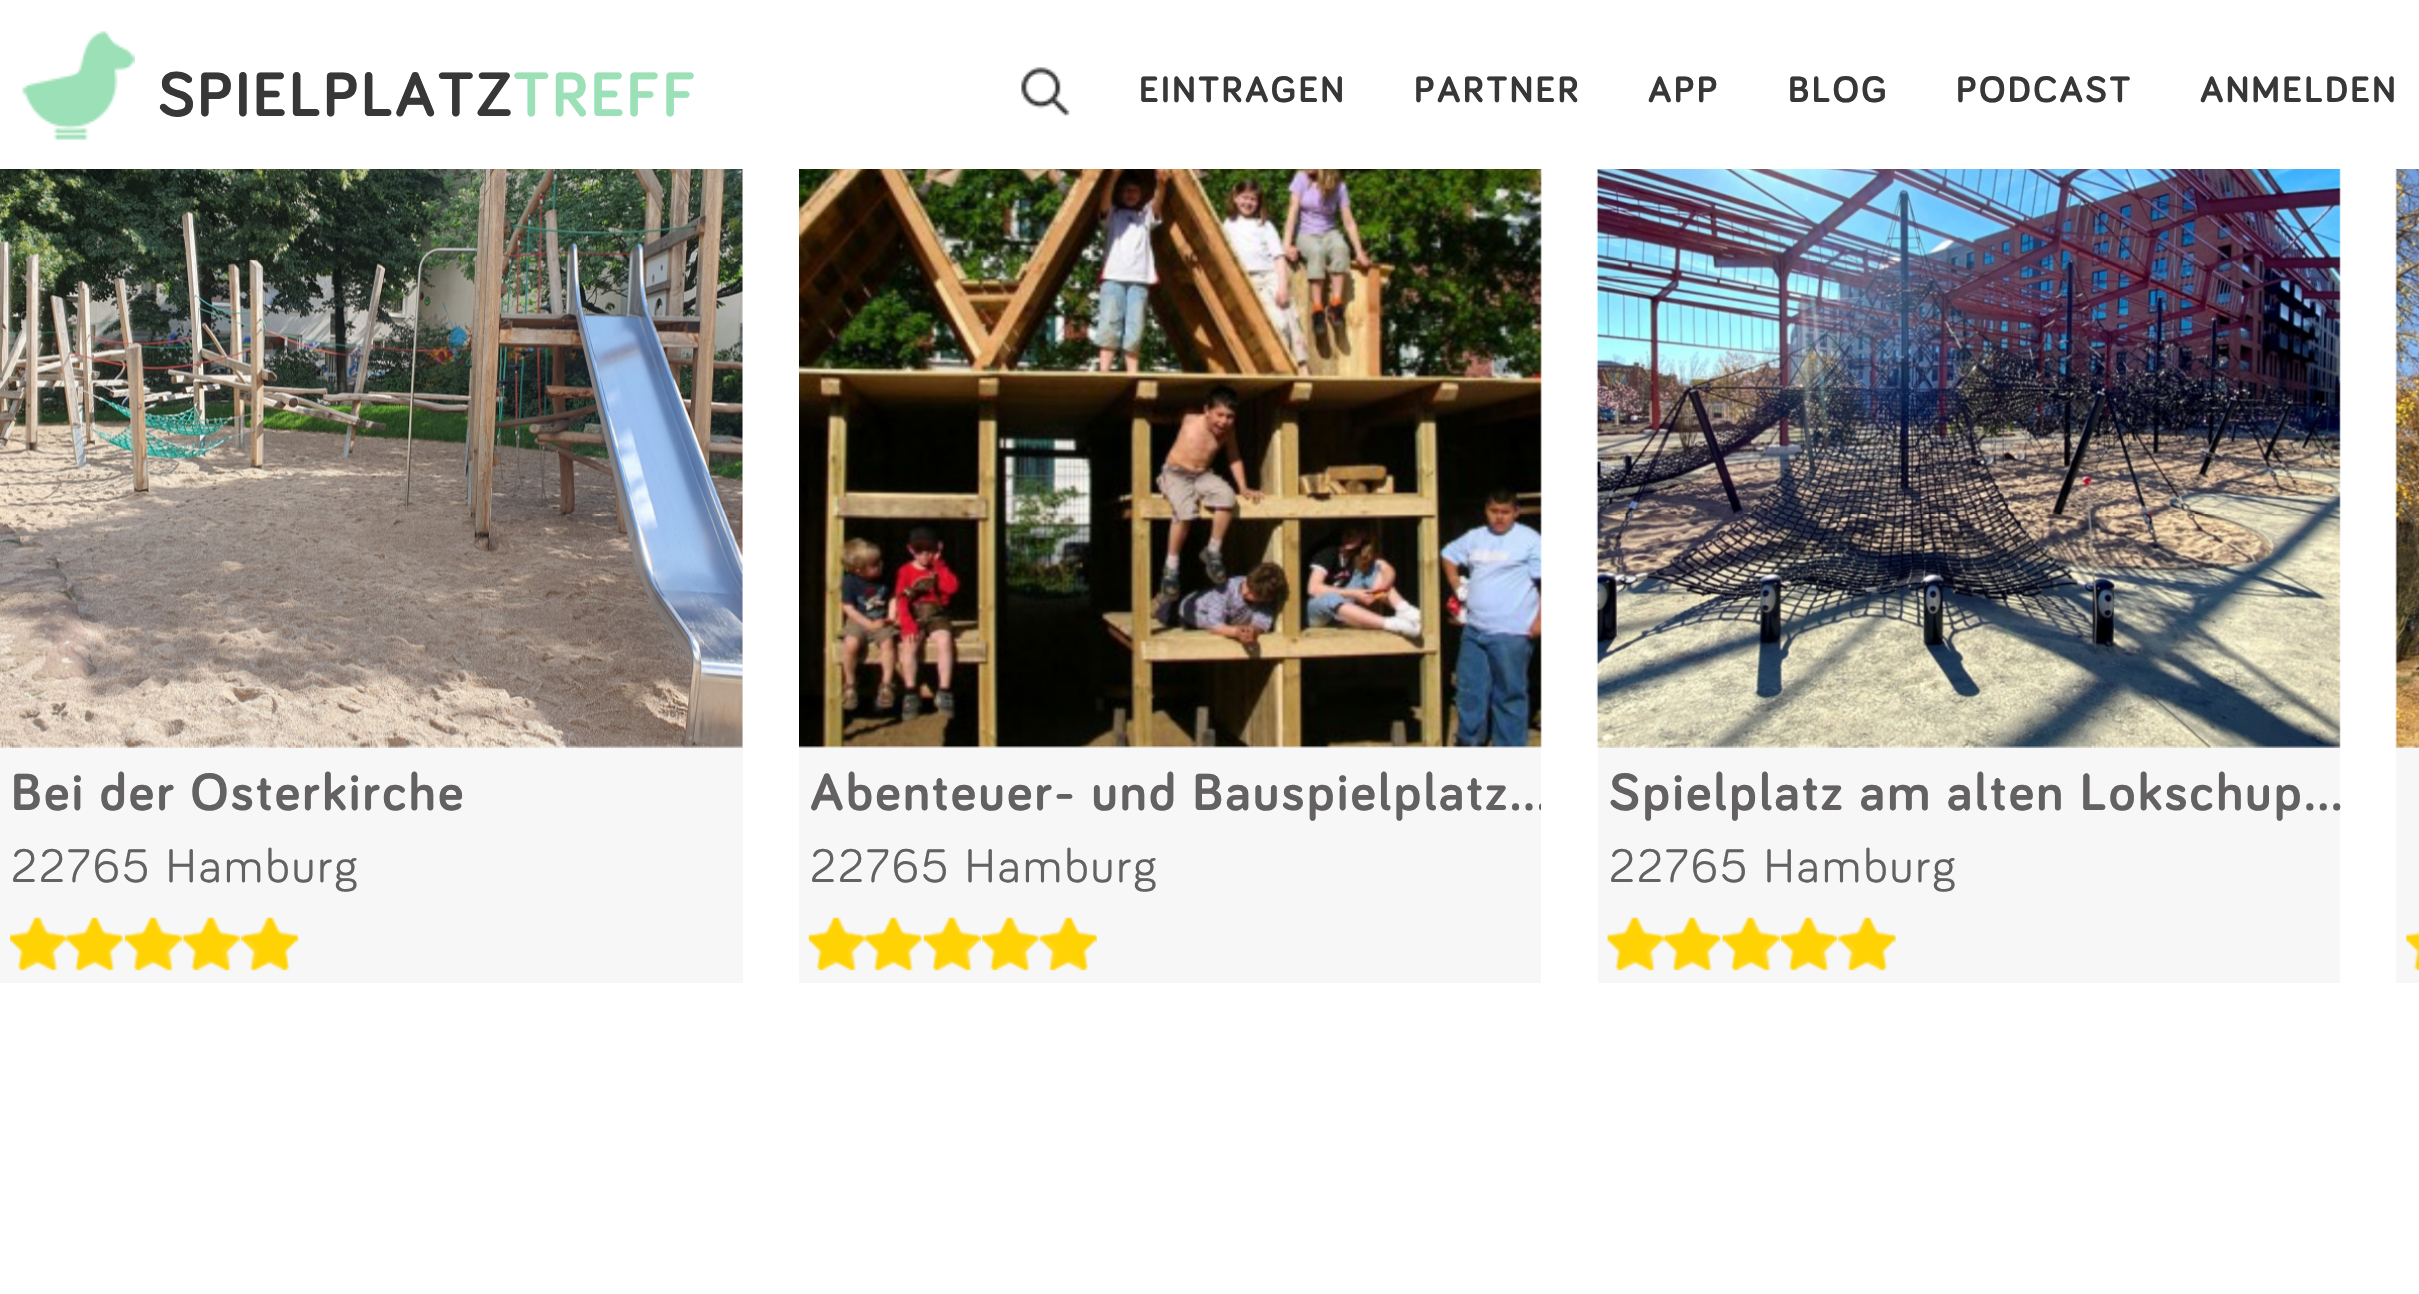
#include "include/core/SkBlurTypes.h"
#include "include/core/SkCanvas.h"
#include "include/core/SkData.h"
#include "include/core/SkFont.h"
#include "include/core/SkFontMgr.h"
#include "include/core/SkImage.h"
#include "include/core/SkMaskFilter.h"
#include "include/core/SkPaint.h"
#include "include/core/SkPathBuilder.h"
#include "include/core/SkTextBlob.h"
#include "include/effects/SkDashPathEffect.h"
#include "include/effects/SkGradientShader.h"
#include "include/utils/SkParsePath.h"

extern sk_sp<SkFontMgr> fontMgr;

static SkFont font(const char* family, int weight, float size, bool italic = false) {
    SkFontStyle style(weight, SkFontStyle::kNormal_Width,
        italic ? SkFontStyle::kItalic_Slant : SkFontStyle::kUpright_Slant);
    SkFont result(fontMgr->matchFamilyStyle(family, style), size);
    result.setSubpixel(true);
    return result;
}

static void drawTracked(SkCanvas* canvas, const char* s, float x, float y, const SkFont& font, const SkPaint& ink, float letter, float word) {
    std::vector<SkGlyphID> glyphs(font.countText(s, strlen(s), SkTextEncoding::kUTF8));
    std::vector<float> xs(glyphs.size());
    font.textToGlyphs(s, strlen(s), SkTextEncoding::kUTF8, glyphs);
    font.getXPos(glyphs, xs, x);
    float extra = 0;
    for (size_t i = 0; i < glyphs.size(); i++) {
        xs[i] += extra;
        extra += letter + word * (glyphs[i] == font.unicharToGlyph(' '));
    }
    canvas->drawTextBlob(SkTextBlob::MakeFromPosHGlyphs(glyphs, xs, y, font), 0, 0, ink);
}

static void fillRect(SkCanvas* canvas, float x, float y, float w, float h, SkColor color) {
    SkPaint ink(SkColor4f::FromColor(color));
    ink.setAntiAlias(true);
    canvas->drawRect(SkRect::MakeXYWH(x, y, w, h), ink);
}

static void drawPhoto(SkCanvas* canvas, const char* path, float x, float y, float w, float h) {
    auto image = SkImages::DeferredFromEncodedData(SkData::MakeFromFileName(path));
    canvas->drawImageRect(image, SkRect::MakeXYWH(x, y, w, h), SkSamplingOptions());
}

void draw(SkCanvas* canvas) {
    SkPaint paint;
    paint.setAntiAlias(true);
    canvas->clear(0xFFFFFFFF);
    drawPhoto(canvas, "assets/img1.png", 22, 31, 113, 110);
    SkFont font1 = font("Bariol", 700, 64.75f);
    paint.setColor(0xFF373737);
    drawTracked(canvas, "SPIELPLATZ", 158, 116, font1, paint, 2.25f, 0);
    paint.setColor(0xFF9CE0B7);
    drawTracked(canvas, "TREFF", 513, 116, font1, paint, 2.25f, 0);
    drawPhoto(canvas, "assets/img2.png", 1021, 67, 49, 49);
    SkFont font2 = font("Bariol", 700, 37.75f);
    paint.setColor(0xFF373737);
    drawTracked(canvas, "EINTRAGEN", 1139, 102, font2, paint, 2.25f, 0);
    drawTracked(canvas, "PARTNER", 1414, 102, font2, paint, 2.25f, 0);
    drawTracked(canvas, "APP", 1648, 102, font2, paint, 2.25f, 0);
    drawTracked(canvas, "BLOG", 1788, 102, font2, paint, 2.25f, 0);
    drawTracked(canvas, "PODCAST", 1956, 102, font2, paint, 2.25f, 0);
    drawTracked(canvas, "ANMELDEN", 2200, 102, font2, paint, 2.25f, 0);
    fillRect(canvas, 0, 169, 743, 814, 0xFFF7F7F7);
    drawPhoto(canvas, "assets/img3.png", 0, 169, 743, 579);
    SkFont font3 = font("Bariol", 700, 54);
    paint.setColor(0xFF636161);
    drawTracked(canvas, "Bei der Osterkirche", 11, 810, font3, paint, 2.25f, 0);
    SkFont font4 = font("Bariol", 400, 48.5f);
    drawTracked(canvas, "22765 Hamburg", 11, 882, font4, paint, 2.25f, 0);
    drawPhoto(canvas, "assets/img4.png", 10, 917, 289, 54);
    fillRect(canvas, 799, 169, 742, 814, 0xFFF7F7F7);
    drawPhoto(canvas, "assets/img5.png", 799, 169, 743, 579);
    canvas->save();
    canvas->clipRect(SkRect::MakeXYWH(810, 765, 731, 59));
    drawTracked(canvas, "Abenteuer- und Bauspielplatz…", 810, 810, font3, paint, 2.25f, 0);
    canvas->restore();
    drawTracked(canvas, "22765 Hamburg", 810, 882, font4, paint, 2.25f, 0);
    drawPhoto(canvas, "assets/img6.png", 808, 917, 289, 54);
    fillRect(canvas, 1598, 169, 742, 814, 0xFFF7F7F7);
    drawPhoto(canvas, "assets/img7.png", 1596, 169, 745, 579);
    drawTracked(canvas, "Spielplatz am alten Lokschup…", 1609, 810, font3, paint, 2.25f, 0);
    drawTracked(canvas, "22765 Hamburg", 1609, 882, font4, paint, 2.25f, 0);
    drawPhoto(canvas, "assets/img8.png", 1607, 917, 289, 54);
    fillRect(canvas, 2396, 169, 23, 814, 0xFFF7F7F7);
    drawPhoto(canvas, "assets/img9.png", 2395, 169, 24, 579);
    drawPhoto(canvas, "assets/img10.png", 2406, 931, 13, 40);
}
